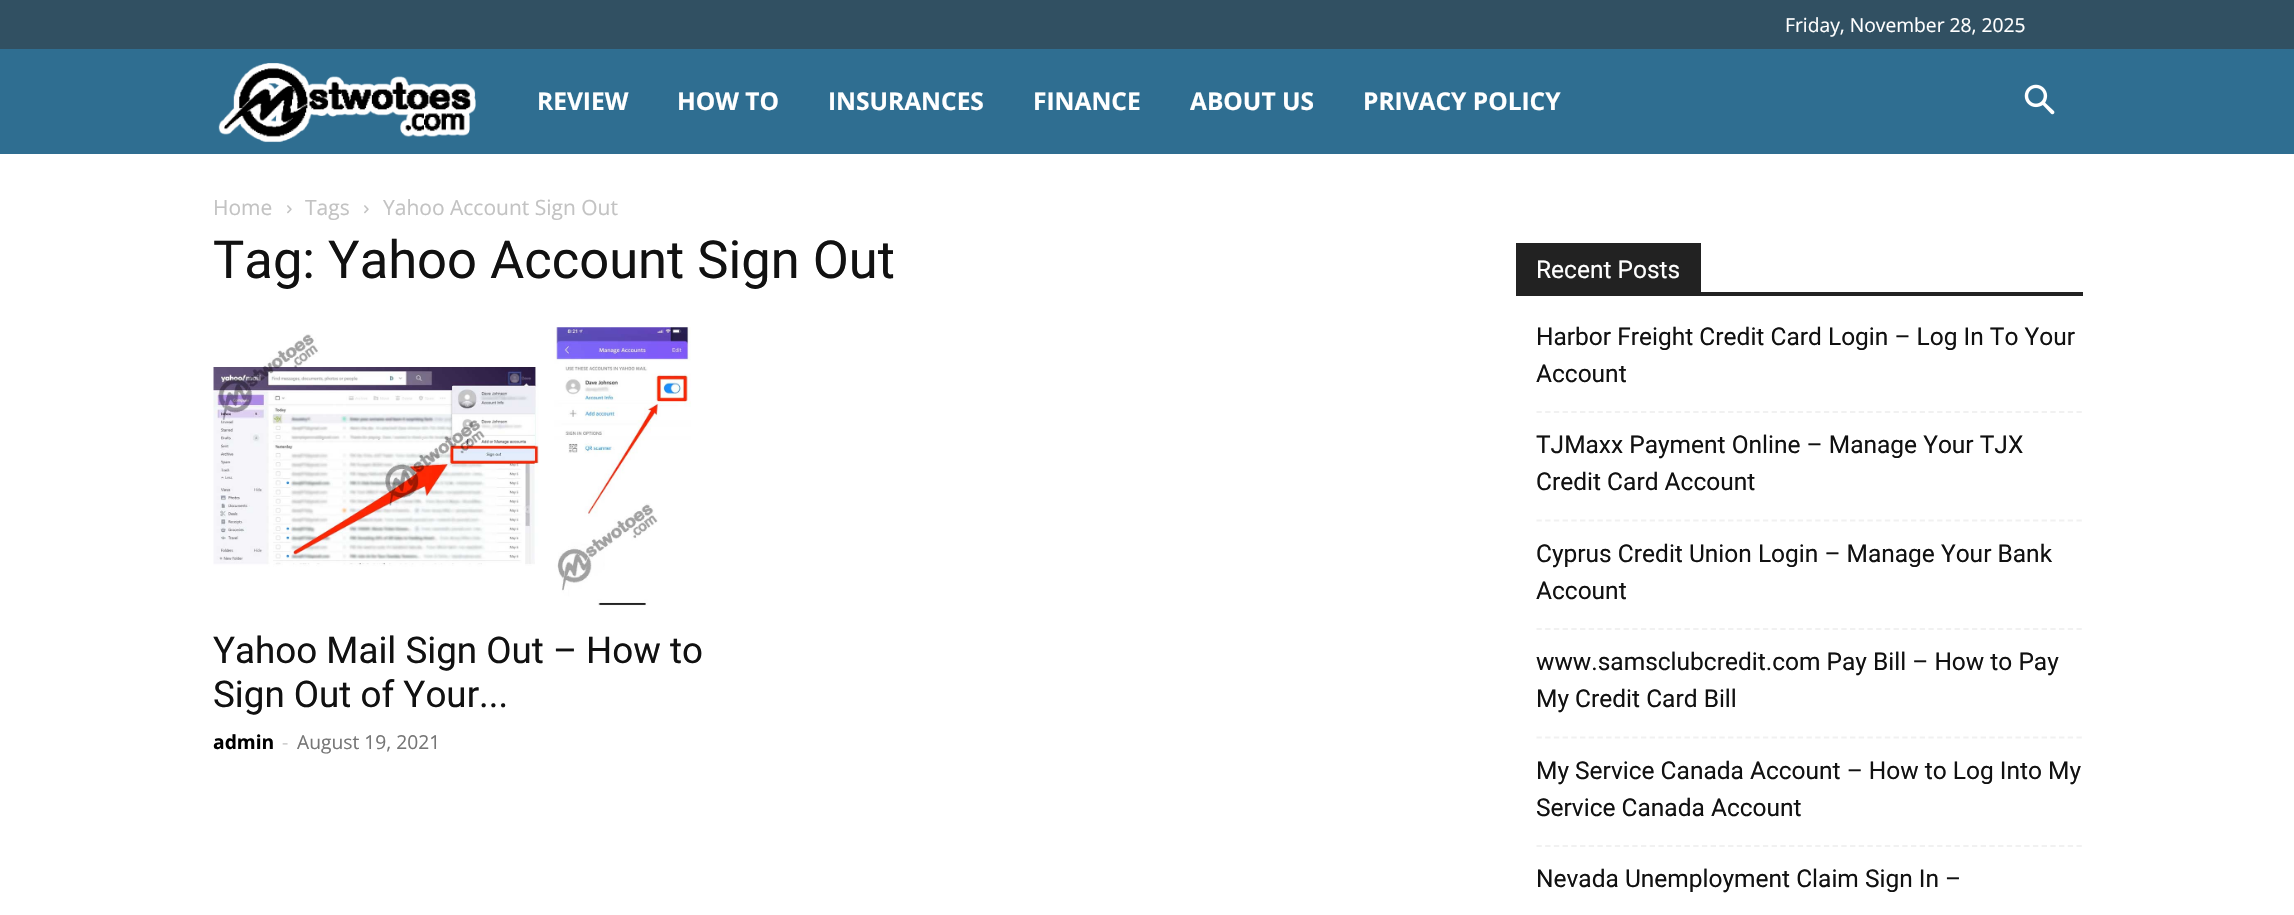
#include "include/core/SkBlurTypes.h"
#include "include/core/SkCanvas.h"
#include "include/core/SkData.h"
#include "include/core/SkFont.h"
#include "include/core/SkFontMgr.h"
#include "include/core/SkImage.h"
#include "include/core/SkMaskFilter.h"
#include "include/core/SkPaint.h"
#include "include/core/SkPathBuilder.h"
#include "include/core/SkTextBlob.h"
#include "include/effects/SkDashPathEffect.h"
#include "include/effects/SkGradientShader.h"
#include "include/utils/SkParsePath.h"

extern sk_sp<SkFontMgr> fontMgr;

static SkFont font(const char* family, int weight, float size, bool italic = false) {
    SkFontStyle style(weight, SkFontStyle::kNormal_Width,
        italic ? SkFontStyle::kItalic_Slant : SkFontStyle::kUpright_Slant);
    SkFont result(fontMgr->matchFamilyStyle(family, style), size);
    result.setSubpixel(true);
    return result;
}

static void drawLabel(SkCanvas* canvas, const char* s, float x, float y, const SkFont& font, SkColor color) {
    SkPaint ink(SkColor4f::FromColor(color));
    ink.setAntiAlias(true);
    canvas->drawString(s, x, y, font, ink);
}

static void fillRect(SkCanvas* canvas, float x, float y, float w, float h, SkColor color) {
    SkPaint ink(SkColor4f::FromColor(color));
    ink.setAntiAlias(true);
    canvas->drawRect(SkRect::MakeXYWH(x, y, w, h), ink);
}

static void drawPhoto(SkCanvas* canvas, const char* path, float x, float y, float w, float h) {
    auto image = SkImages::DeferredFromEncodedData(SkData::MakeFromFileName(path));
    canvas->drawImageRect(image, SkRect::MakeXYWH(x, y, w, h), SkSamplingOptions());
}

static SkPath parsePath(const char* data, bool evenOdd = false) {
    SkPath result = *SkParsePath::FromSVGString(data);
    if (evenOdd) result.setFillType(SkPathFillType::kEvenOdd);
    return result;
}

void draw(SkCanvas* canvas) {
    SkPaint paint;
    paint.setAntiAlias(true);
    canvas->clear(0xFFFFFFFF);
    fillRect(canvas, 0, 0, 2294, 49, 0xFF315062);
    SkFont font1 = font("Open Sans", 400, 19.25f);
    drawLabel(canvas, "Friday, November 28, 2025", 1785, 32, font1, 0xFFFFFFFF);
    fillRect(canvas, 0, 49, 2294, 105, 0xFF2F6E91);
    drawPhoto(canvas, "assets/img1.png", 218, 63, 258, 80);
    SkFont font2 = font("Open Sans", 700, 24.5f);
    drawLabel(canvas, "REVIEW", 537, 110, font2, 0xFFFFFFFF);
    drawLabel(canvas, "HOW TO", 677, 110, font2, 0xFFFFFFFF);
    drawLabel(canvas, "INSURANCES", 828, 110, font2, 0xFFFFFFFF);
    drawLabel(canvas, "FINANCE", 1033, 110, font2, 0xFFFFFFFF);
    drawLabel(canvas, "ABOUT US", 1190, 110, font2, 0xFFFFFFFF);
    drawLabel(canvas, "PRIVACY POLICY", 1363, 110, font2, 0xFFFFFFFF);
    drawPhoto(canvas, "assets/img2.png", 2024, 84, 31, 31);
    SkFont font3 = font("Open Sans", 400, 21);
    drawLabel(canvas, "Home", 213, 215, font3, 0xFFC3C3C3);
    drawPhoto(canvas, "assets/img3.png", 287, 205, 5, 9);
    drawLabel(canvas, "Tags", 305, 215, font3, 0xFFC3C3C3);
    drawPhoto(canvas, "assets/img3.png", 364, 205, 5, 9);
    drawLabel(canvas, "Yahoo Account Sign Out", 383, 215, font3, 0xFFC3C3C3);
    SkFont font4 = font("Roboto", 400, 52.5f);
    drawLabel(canvas, "Tag: Yahoo Account Sign Out", 213, 278, font4, 0xFF111111);
    drawPhoto(canvas, "assets/img4.png", 213, 327, 478, 279);
    SkFont font5 = font("Roboto", 400, 36.75f);
    drawLabel(canvas, "Yahoo Mail Sign Out – How to", 213, 663, font5, 0xFF111111);
    drawLabel(canvas, "Sign Out of Your...", 213, 707, font5, 0xFF111111);
    SkFont font6 = font("Open Sans", 700, 19.25f);
    drawLabel(canvas, "admin", 213, 749, font6, 0xFF000000);
    drawLabel(canvas, "-", 282, 749, font1, 0xFFCCCCCC);
    drawLabel(canvas, "August 19, 2021", 297, 749, font1, 0xFF767676);
    fillRect(canvas, 1516, 292, 567, 4, 0xFF222222);
    fillRect(canvas, 1516, 243, 185, 49, 0xFF222222);
    SkFont font7 = font("Roboto", 400, 24.5f);
    drawLabel(canvas, "Recent Posts", 1536, 278, font7, 0xFFFFFFFF);
    paint.setStroke(true);
    paint.setStrokeWidth(1.8f);
    paint.setColor(0xFFF1F1F1);
    paint.setPathEffect(SkDashPathEffect::Make({{5.25f, 3.46f}}, 0));
    canvas->drawPath(parsePath("M1536.5 412H2082.5"), paint);
    paint.setPathEffect(nullptr);
    drawLabel(canvas, "Harbor Freight Credit Card Login – Log In To Your", 1536, 345, font7, 0xFF111111);
    drawLabel(canvas, "Account", 1536, 382, font7, 0xFF111111);
    paint.setPathEffect(SkDashPathEffect::Make({{5.25f, 3.46f}}, 0));
    canvas->drawPath(parsePath("M1536.5 520.5H2082.5"), paint);
    paint.setPathEffect(nullptr);
    drawLabel(canvas, "TJMaxx Payment Online – Manage Your TJX", 1536, 453, font7, 0xFF111111);
    drawLabel(canvas, "Credit Card Account", 1536, 490, font7, 0xFF111111);
    paint.setPathEffect(SkDashPathEffect::Make({{5.25f, 3.46f}}, 0));
    canvas->drawPath(parsePath("M1536.5 629H2082.5"), paint);
    paint.setPathEffect(nullptr);
    drawLabel(canvas, "Cyprus Credit Union Login – Manage Your Bank", 1536, 562, font7, 0xFF111111);
    drawLabel(canvas, "Account", 1536, 599, font7, 0xFF111111);
    paint.setPathEffect(SkDashPathEffect::Make({{5.25f, 3.46f}}, 0));
    canvas->drawPath(parsePath("M1536.5 737.5H2082.5"), paint);
    paint.setPathEffect(nullptr);
    drawLabel(canvas, "www.samsclubcredit.com Pay Bill – How to Pay", 1536, 670, font7, 0xFF111111);
    drawLabel(canvas, "My Credit Card Bill", 1536, 707, font7, 0xFF111111);
    paint.setPathEffect(SkDashPathEffect::Make({{5.25f, 3.46f}}, 0));
    canvas->drawPath(parsePath("M1536.5 846H2082.5"), paint);
    paint.setPathEffect(nullptr);
    drawLabel(canvas, "My Service Canada Account – How to Log Into My", 1536, 779, font7, 0xFF111111);
    drawLabel(canvas, "Service Canada Account", 1536, 816, font7, 0xFF111111);
    drawLabel(canvas, "Nevada Unemployment Claim Sign In –", 1536, 887, font7, 0xFF111111);
}
